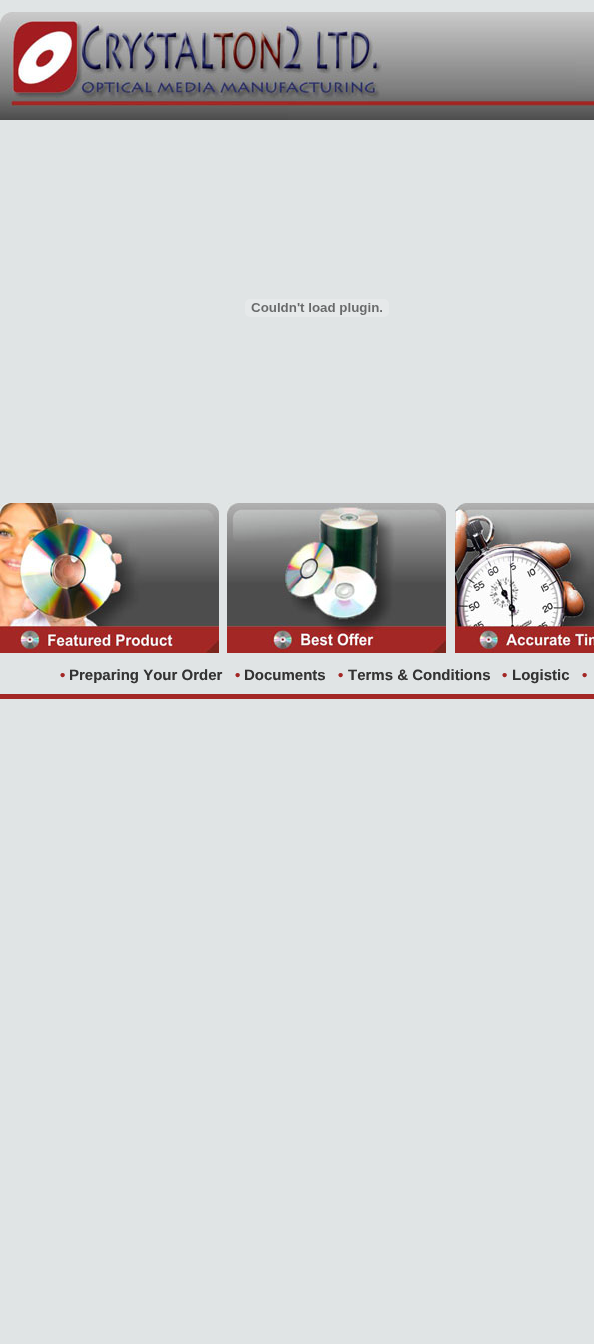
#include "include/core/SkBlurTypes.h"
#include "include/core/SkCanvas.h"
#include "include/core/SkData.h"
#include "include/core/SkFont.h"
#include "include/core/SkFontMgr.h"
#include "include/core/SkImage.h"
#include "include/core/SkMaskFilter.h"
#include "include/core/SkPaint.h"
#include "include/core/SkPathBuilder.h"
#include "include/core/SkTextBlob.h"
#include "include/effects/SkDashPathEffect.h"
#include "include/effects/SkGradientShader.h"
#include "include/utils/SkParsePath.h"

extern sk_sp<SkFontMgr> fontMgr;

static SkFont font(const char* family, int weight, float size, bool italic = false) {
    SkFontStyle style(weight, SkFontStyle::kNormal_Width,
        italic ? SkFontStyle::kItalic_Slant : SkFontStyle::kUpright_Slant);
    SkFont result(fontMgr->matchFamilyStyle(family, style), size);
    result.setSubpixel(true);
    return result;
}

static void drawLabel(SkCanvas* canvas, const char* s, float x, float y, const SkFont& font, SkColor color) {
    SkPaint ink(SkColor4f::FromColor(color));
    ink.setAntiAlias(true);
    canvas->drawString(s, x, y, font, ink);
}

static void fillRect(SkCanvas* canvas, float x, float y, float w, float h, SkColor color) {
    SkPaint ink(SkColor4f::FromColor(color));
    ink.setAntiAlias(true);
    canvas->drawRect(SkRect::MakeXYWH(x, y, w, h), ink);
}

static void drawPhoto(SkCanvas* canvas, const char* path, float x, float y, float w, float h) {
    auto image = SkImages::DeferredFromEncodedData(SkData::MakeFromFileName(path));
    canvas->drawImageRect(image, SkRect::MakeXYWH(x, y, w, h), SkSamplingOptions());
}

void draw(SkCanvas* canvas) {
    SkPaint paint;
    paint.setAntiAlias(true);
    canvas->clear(0xFFE0E4E5);
    drawPhoto(canvas, "assets/img1.png", 0, 12, 594, 108);
    drawPhoto(canvas, "assets/img2.png", 245, 299, 144, 18);
    drawPhoto(canvas, "assets/img3.png", 0, 503, 219, 150);
    drawPhoto(canvas, "assets/img4.png", 227, 503, 219, 150);
    drawPhoto(canvas, "assets/img5.png", 455, 503, 139, 150);
    SkFont font1 = font("Liberation Sans", 700, 15);
    drawLabel(canvas, "•", 60, 680, font1, 0xFFA32625);
    drawLabel(canvas, "Preparing Your Order", 69, 680, font1, 0xFF333333);
    drawLabel(canvas, "•", 235, 680, font1, 0xFFA32625);
    drawLabel(canvas, "Documents", 244, 680, font1, 0xFF333333);
    drawLabel(canvas, "•", 338, 680, font1, 0xFFA32625);
    drawLabel(canvas, "Terms & Conditions", 348, 680, font1, 0xFF333333);
    drawLabel(canvas, "•", 502, 680, font1, 0xFFA32625);
    drawLabel(canvas, "Logistic", 512, 680, font1, 0xFF333333);
    drawLabel(canvas, "•", 582, 680, font1, 0xFFA32625);
    fillRect(canvas, 0, 694, 594, 5, 0xFFA32725);
}
